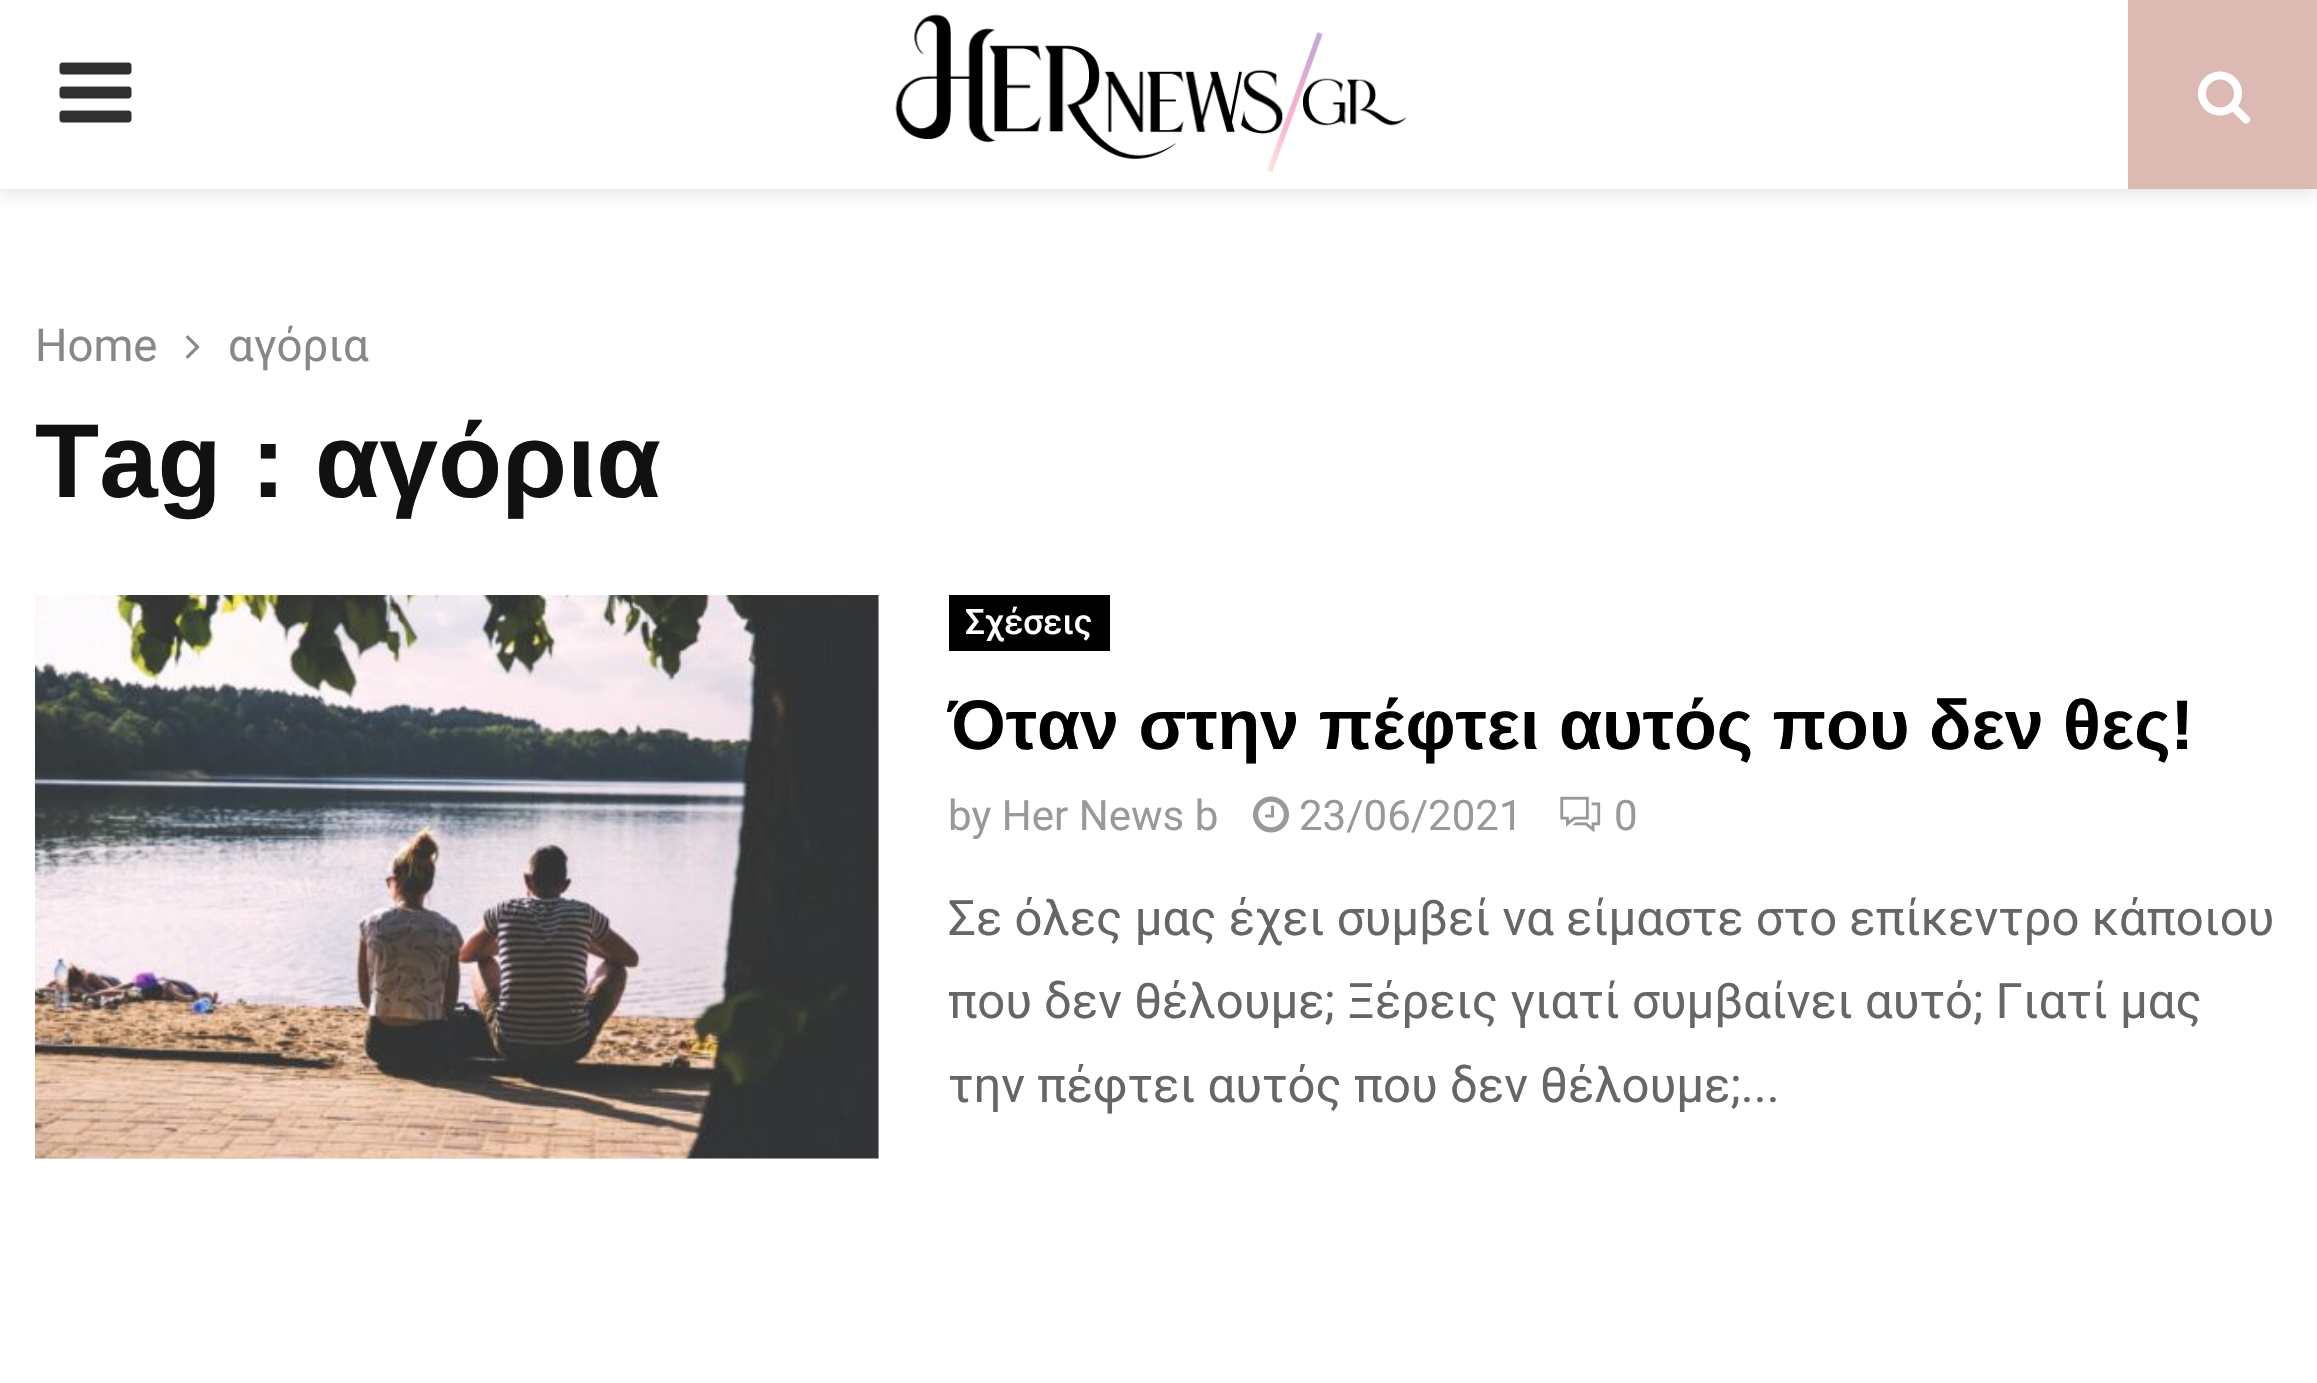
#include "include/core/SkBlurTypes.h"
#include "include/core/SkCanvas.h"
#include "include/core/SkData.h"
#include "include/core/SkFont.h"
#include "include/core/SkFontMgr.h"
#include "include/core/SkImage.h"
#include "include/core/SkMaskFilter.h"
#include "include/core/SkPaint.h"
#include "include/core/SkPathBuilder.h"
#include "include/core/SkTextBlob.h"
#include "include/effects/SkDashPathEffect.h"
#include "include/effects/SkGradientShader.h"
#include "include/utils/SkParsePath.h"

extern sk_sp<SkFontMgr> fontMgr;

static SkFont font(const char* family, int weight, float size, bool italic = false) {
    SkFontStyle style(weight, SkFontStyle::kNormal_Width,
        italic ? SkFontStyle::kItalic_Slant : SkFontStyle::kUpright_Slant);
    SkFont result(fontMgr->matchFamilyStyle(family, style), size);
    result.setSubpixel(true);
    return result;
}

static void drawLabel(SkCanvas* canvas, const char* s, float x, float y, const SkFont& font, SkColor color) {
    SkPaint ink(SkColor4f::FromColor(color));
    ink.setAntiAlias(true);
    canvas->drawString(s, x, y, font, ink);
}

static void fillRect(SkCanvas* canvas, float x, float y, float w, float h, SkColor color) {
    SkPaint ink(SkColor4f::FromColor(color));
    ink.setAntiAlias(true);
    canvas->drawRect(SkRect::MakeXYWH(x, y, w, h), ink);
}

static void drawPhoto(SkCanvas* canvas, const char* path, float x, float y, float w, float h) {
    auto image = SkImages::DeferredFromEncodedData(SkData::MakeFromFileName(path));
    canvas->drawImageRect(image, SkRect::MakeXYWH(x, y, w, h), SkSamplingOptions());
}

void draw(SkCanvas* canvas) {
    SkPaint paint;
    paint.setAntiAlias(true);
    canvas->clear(0xFFFFFFFF);
    canvas->save();
    canvas->clipRect(SkRect::MakeXYWH(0, 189, 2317, 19));
    paint.setColor(0x75BEBEBE);
    paint.setMaskFilter(SkMaskFilter::MakeBlur(kNormal_SkBlurStyle, 9));
    canvas->drawRect(SkRect::MakeXYWH(0, 4, 2317, 189), paint);
    paint.setMaskFilter(nullptr);
    canvas->restore();
    drawPhoto(canvas, "assets/img1.png", 59, 62, 73, 61);
    drawPhoto(canvas, "assets/img2.png", 895, 14, 512, 159);
    fillRect(canvas, 2128, 0, 189, 189, 0xFFDCB9B3);
    drawPhoto(canvas, "assets/img3.png", 2198, 71, 52, 53);
    SkFont font1 = font("Roboto", 400, 45.5f);
    drawLabel(canvas, "Home", 35, 361, font1, 0xFF888888);
    drawPhoto(canvas, "assets/img4.png", 185, 335, 15, 24);
    drawLabel(canvas, "αγόρια", 228, 361, font1, 0xFF888888);
    SkFont font2 = font("Arimo", 700, 105);
    drawLabel(canvas, "Tag : αγόρια", 35, 497, font2, 0xFF111111);
    fillRect(canvas, 35, 595, 844, 564, 0xFFF5F5F5);
    drawPhoto(canvas, "assets/img5.png", 35, 595, 844, 564);
    fillRect(canvas, 949, 595, 161, 56, 0xFF000000);
    SkFont font3 = font("Roboto", 500, 35);
    drawLabel(canvas, "Σχέσεις", 965, 634, font3, 0xFFFFFFFF);
    SkFont font4 = font("Arimo", 700, 70);
    drawLabel(canvas, "Όταν στην πέφτει αυτός που δεν θες!", 948, 749, font4, 0xFF000000);
    SkFont font5 = font("Roboto", 400, 42);
    drawLabel(canvas, "by Her News b", 948, 830, font5, 0xFF999999);
    drawPhoto(canvas, "assets/img6.png", 1253, 796, 36, 37);
    drawLabel(canvas, "23/06/2021", 1299, 830, font5, 0xFF999999);
    drawPhoto(canvas, "assets/img7.png", 1560, 796, 41, 37);
    drawLabel(canvas, "0", 1614, 830, font5, 0xFF999999);
    SkFont font6 = font("Roboto", 400, 49);
    drawLabel(canvas, "Σε όλες μας έχει συμβεί να είμαστε στο επίκεντρο κάποιου", 948, 935, font6, 0xFF666666);
    drawLabel(canvas, "που δεν θέλουμε; Ξέρεις γιατί συμβαίνει αυτό; Γιατί μας", 948, 1018, font6, 0xFF666666);
    drawLabel(canvas, "την πέφτει αυτός που δεν θέλουμε;...", 948, 1102, font6, 0xFF666666);
}
